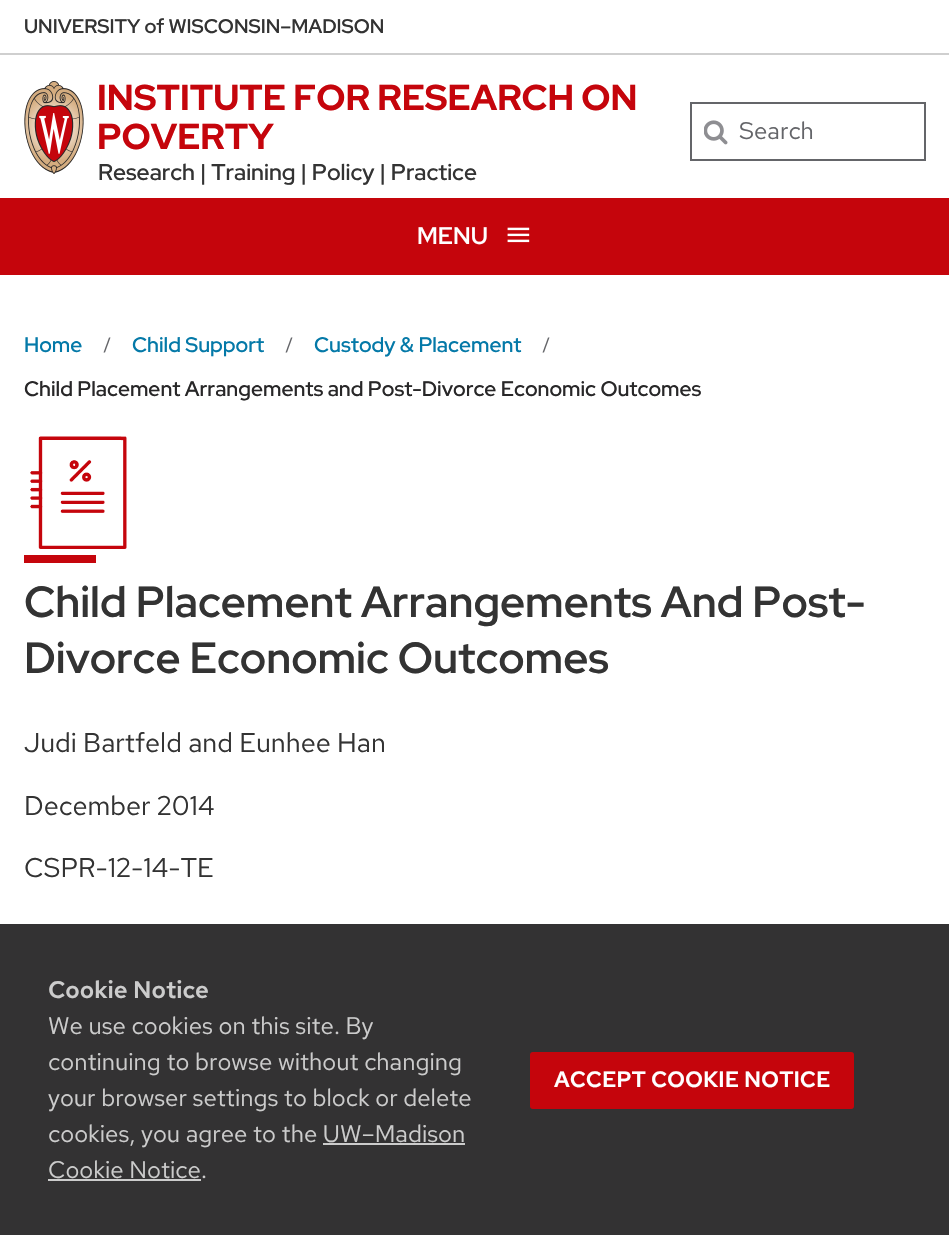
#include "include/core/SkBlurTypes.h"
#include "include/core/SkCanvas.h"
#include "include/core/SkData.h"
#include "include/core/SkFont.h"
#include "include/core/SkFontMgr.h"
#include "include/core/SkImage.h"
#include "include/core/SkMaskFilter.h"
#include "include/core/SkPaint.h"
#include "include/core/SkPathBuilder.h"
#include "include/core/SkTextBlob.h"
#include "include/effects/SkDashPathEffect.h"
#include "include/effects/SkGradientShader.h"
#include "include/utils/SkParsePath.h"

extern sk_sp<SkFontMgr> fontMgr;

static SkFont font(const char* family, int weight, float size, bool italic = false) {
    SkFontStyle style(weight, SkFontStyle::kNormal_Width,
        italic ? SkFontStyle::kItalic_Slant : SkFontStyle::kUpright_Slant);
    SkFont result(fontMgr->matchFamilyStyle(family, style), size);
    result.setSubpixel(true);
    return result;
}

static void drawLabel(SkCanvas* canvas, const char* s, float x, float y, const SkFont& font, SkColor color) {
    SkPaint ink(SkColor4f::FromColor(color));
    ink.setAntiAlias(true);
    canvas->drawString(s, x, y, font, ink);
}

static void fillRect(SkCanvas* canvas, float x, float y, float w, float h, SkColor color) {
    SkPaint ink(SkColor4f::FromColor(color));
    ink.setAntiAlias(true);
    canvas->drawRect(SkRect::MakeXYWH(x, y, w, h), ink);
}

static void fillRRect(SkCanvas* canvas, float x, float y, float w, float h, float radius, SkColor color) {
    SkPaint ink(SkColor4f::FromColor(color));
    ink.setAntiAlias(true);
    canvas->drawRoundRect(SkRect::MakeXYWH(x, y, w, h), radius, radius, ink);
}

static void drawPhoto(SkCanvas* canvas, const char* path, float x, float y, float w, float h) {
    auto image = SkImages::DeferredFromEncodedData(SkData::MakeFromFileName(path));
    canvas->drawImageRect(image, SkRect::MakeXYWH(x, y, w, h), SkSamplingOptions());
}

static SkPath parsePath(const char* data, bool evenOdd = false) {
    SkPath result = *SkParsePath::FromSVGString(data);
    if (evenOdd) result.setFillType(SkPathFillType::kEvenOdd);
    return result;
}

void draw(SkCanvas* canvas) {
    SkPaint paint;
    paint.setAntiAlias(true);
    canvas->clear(0xFFFFFFFF);
    fillRect(canvas, 0, 53, 949, 2, 0xFFCFCFCF);
    SkFont font1 = font("Red Hat Display", 600, 19.75f);
    drawLabel(canvas, "UNIVERSITY of WISCONSIN–MADISON", 24, 33, font1, 0xFF333333);
    drawPhoto(canvas, "assets/img1.png", 24, 81, 60, 93);
    SkFont font2 = font("Red Hat Display", 800, 36);
    drawLabel(canvas, "INSTITUTE FOR RESEARCH ON", 97, 110, font2, 0xFFC5050C);
    drawLabel(canvas, "POVERTY", 97, 149, font2, 0xFFC5050C);
    SkFont font3 = font("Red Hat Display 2", 600, 22.75f);
    drawLabel(canvas, "Research | Training | Policy | Practice", 98, 180, font3, 0xFF333333);
    drawPhoto(canvas, "assets/img2.png", 704, 120, 24, 25);
    paint.setStroke(true);
    paint.setStrokeWidth(2);
    paint.setColor(0xFF646569);
    canvas->drawRect(SkRect::MakeXYWH(691, 103, 234, 57), paint);
    SkFont font4 = font("Red Hat Text", 400, 24);
    drawLabel(canvas, "Search", 739, 139, font4, 0xFF646569);
    fillRect(canvas, 0, 198, 949, 77, 0xFFC5050C);
    SkFont font5 = font("Red Hat Display", 600, 24);
    drawLabel(canvas, "MENU", 417, 244, font5, 0xFFFFFFFF);
    drawPhoto(canvas, "assets/img3.png", 507, 227, 23, 16);
    SkFont font6 = font("Red Hat Display", 500, 21);
    drawLabel(canvas, "Home", 24, 352, font6, 0xFF0479A8);
    paint.setStroke(false);
    canvas->drawPath(parsePath("M109 337.5H110.5L105 352.5H103.5Z"), paint);
    drawLabel(canvas, "Child Support", 132, 352, font6, 0xFF0479A8);
    canvas->drawPath(parsePath("M291 337.5H292.5L287 352.5H285.5Z"), paint);
    drawLabel(canvas, "Custody & Placement", 314, 352, font6, 0xFF0479A8);
    canvas->drawPath(parsePath("M548 337.5H549.5L544 352.5H542.5Z"), paint);
    drawLabel(canvas, "Child Placement Arrangements and Post-Divorce Economic Outcomes", 24, 396, font6, 0xFF282728);
    drawPhoto(canvas, "assets/img4.png", 30, 436, 97, 113);
    fillRect(canvas, 24, 555, 72, 8, 0xFFC5050C);
    SkFont font7 = font("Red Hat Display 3", 600, 43.5f);
    drawLabel(canvas, "Child Placement Arrangements And Post-", 24, 617, font7, 0xFF333333);
    drawLabel(canvas, "Divorce Economic Outcomes", 24, 673, font7, 0xFF333333);
    SkFont font8 = font("Red Hat Text", 400, 27);
    drawLabel(canvas, "Judi Bartfeld and Eunhee Han", 24, 752, font8, 0xFF333333);
    drawLabel(canvas, "December 2014", 24, 815, font8, 0xFF333333);
    drawLabel(canvas, "CSPR-12-14-TE", 24, 877, font8, 0xFF333333);
    fillRect(canvas, 0, 924, 949, 311, 0xF2282728);
    SkFont font9 = font("Red Hat Text", 600, 24);
    drawLabel(canvas, "Cookie Notice", 48, 998, font9, 0xFFCCCCCC);
    drawLabel(canvas, "We use cookies on this site. By", 48, 1034, font4, 0xFFCCCCCC);
    drawLabel(canvas, "continuing to browse without changing", 48, 1070, font4, 0xFFCCCCCC);
    drawLabel(canvas, "your browser settings to block or delete", 48, 1106, font4, 0xFFCCCCCC);
    drawLabel(canvas, "cookies, you agree to the UW–Madison", 48, 1142, font4, 0xFFCCCCCC);
    drawLabel(canvas, "Cookie Notice.", 48, 1178, font4, 0xFFCCCCCC);
    fillRect(canvas, 323, 1143, 142, 2, 0xFFCCCCCC);
    fillRect(canvas, 48, 1179, 153, 2, 0xFFCCCCCC);
    fillRRect(canvas, 530, 1052, 324, 57, 3, 0xFFC5050C);
    SkFont font10 = font("Red Hat Text", 600, 22.25f);
    drawLabel(canvas, "ACCEPT COOKIE NOTICE", 554, 1087, font10, 0xFFFFFFFF);
}
